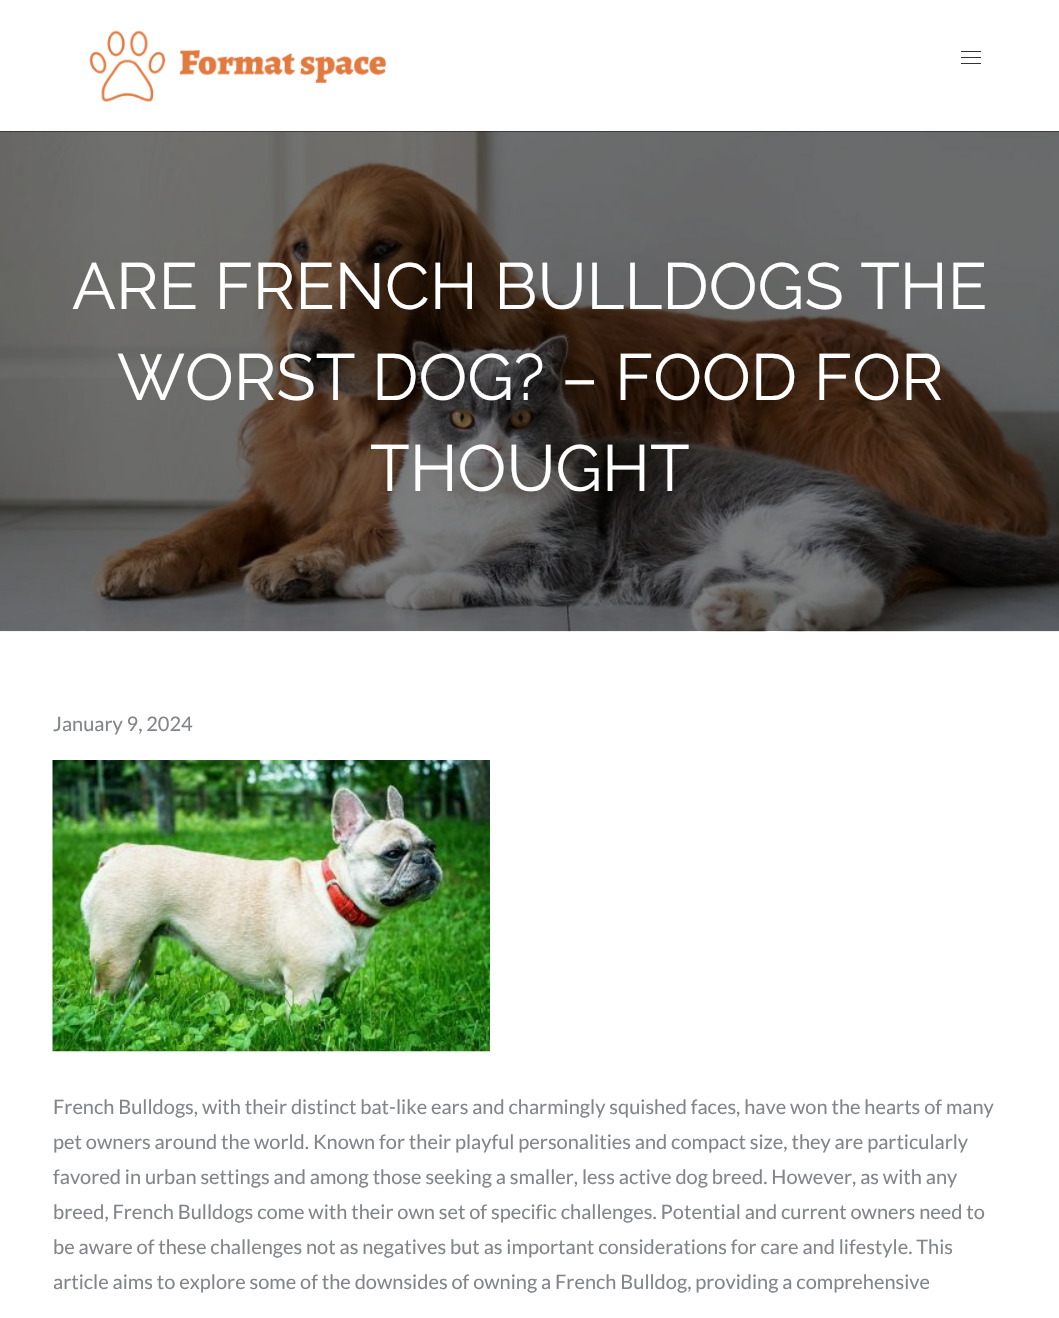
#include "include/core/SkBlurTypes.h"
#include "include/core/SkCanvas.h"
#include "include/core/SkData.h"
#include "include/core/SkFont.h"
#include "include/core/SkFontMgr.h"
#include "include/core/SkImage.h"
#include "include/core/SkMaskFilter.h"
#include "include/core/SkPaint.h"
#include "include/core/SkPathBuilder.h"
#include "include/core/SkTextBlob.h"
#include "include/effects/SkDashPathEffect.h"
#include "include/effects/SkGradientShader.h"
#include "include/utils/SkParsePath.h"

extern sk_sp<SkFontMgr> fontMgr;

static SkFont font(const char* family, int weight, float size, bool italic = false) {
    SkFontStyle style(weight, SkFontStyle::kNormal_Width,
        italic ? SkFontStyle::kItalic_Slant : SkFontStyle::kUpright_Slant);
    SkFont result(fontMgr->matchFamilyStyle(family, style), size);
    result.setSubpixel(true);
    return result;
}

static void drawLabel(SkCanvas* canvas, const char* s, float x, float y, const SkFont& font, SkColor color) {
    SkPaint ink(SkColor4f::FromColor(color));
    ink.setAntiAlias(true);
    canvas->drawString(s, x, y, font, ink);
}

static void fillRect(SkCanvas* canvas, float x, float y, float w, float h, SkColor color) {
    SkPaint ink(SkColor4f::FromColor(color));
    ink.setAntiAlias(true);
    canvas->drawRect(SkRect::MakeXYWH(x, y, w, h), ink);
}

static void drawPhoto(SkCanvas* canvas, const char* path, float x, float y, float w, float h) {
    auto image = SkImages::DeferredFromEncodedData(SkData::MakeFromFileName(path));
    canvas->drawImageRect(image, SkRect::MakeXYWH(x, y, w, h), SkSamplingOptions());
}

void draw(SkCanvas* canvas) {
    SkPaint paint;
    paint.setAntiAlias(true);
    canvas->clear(0xFFFFFFFF);
    drawPhoto(canvas, "assets/img1.png", 89, 30, 297, 72);
    fillRect(canvas, 961, 51, 20, 1, 0xFF333333);
    fillRect(canvas, 961, 57, 20, 1, 0xFF333333);
    fillRect(canvas, 961, 63, 20, 1, 0xFF333333);
    fillRect(canvas, 0, 131, 1059, 1, 0xFF000000);
    drawPhoto(canvas, "assets/img2.png", 0, 131, 1059, 501);
    SkFont font1 = font("Raleway", 400, 65);
    drawLabel(canvas, "ARE FRENCH BULLDOGS THE", 72, 309, font1, 0xFFFFFFFF);
    drawLabel(canvas, "WORST DOG? – FOOD FOR", 117, 400, font1, 0xFFFFFFFF);
    drawLabel(canvas, "THOUGHT", 370, 491, font1, 0xFFFFFFFF);
    SkFont font2 = font("Lato", 400, 20);
    drawLabel(canvas, "January 9, 2024", 53, 731, font2, 0xFF82868B);
    drawPhoto(canvas, "assets/img3.png", 52, 760, 438, 292);
    drawLabel(canvas, "French Bulldogs, with their distinct bat-like ears and charmingly squished faces, have won the hearts of many", 53, 1114, font2, 0xFF82868B);
    drawLabel(canvas, "pet owners around the world. Known for their playful personalities and compact size, they are particularly", 53, 1149, font2, 0xFF82868B);
    drawLabel(canvas, "favored in urban settings and among those seeking a smaller, less active dog breed. However, as with any", 53, 1184, font2, 0xFF82868B);
    drawLabel(canvas, "breed, French Bulldogs come with their own set of specific challenges. Potential and current owners need to", 53, 1219, font2, 0xFF82868B);
    drawLabel(canvas, "be aware of these challenges not as negatives but as important considerations for care and lifestyle. This", 53, 1254, font2, 0xFF82868B);
    drawLabel(canvas, "article aims to explore some of the downsides of owning a French Bulldog, providing a comprehensive", 53, 1289, font2, 0xFF82868B);
}
